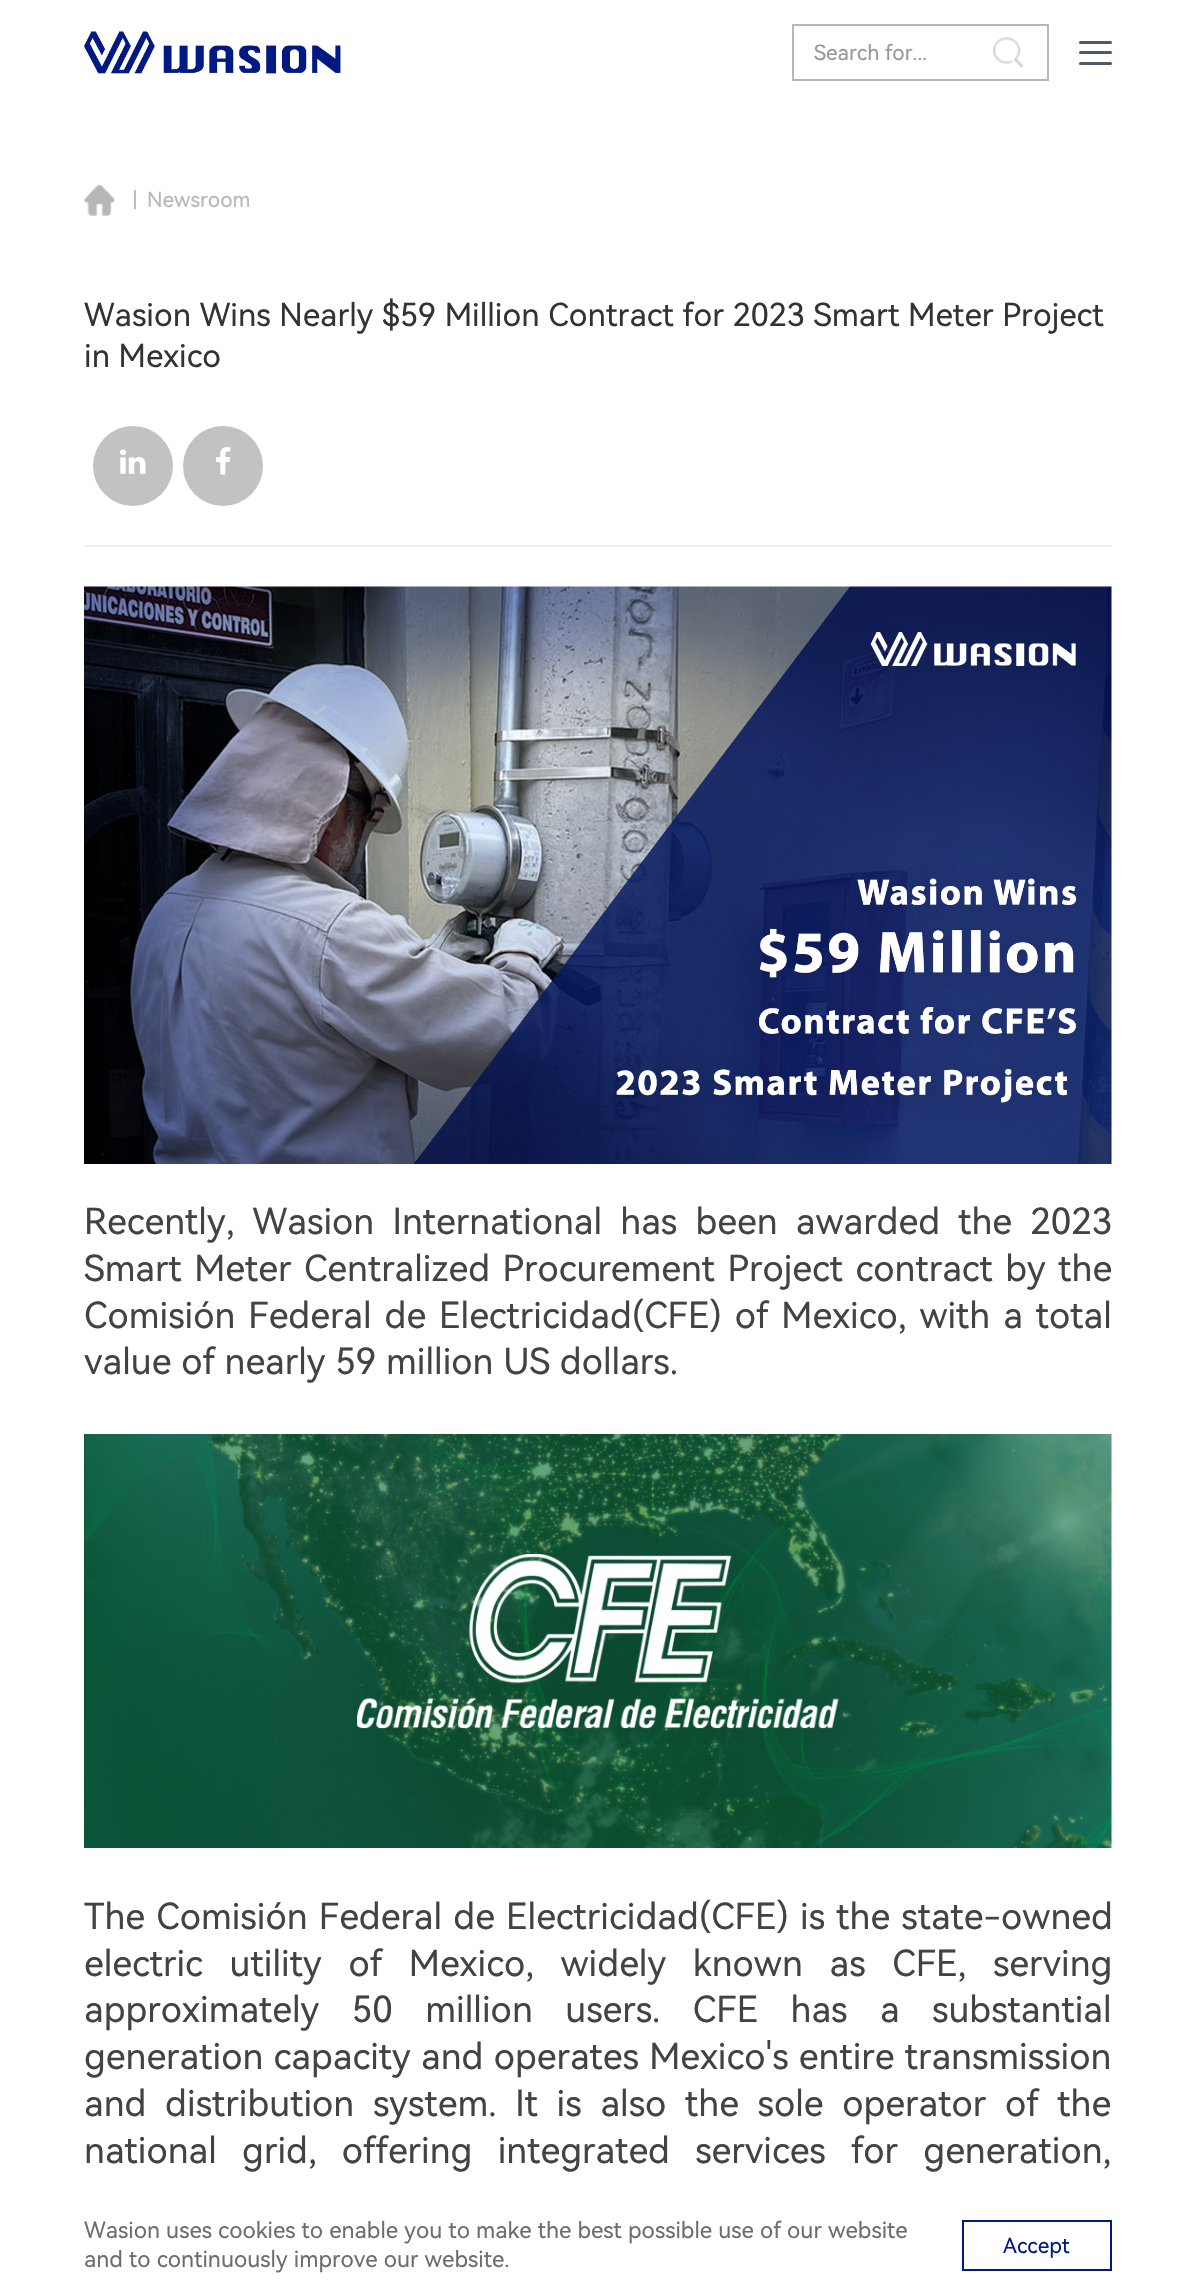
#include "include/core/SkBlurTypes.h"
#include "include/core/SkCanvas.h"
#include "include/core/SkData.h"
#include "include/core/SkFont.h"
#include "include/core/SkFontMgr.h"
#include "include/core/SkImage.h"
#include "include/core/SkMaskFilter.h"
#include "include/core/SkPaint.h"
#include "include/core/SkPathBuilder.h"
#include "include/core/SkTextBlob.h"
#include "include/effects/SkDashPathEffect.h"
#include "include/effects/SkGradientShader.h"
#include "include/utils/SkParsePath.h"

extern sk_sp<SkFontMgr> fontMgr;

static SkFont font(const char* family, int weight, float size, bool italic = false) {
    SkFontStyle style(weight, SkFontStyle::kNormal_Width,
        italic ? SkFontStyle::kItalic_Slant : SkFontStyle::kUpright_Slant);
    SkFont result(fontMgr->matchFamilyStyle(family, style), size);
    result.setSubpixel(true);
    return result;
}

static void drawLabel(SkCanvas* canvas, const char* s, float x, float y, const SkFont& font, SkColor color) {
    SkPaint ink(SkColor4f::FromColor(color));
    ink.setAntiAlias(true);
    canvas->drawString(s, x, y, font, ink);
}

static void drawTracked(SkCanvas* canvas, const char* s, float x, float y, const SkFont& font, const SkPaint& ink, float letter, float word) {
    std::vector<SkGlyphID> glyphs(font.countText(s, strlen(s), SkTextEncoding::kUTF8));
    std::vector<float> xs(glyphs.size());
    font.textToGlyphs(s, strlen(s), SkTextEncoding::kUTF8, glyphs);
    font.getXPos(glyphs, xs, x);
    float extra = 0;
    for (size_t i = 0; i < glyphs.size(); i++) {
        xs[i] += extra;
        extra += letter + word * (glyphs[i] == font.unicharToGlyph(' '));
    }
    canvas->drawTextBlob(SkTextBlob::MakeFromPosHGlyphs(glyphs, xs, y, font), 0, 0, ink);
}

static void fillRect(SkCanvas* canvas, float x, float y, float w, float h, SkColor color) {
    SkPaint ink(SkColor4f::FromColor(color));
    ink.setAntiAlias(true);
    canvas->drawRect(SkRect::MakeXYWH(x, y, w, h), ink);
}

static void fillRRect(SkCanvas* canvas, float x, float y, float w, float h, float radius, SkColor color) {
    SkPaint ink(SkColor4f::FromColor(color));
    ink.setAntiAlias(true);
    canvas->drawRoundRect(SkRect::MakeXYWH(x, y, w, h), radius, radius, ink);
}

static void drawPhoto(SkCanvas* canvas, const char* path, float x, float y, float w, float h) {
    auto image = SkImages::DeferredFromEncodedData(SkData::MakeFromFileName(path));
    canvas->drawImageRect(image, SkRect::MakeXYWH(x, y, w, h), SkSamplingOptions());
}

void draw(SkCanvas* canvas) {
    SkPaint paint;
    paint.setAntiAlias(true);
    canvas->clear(0xFFFFFFFF);
    drawPhoto(canvas, "assets/img1.png", 84, 31, 257, 43);
    paint.setStroke(true);
    paint.setStrokeWidth(2);
    paint.setColor(0xFFB7B7B7);
    canvas->drawRect(SkRect::MakeXYWH(793, 25, 255, 55), paint);
    SkFont font1 = font("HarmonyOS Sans", 400, 21);
    drawLabel(canvas, "Search for...", 814, 60, font1, 0xFF999999);
    drawPhoto(canvas, "assets/img2.png", 993, 37, 30, 31);
    fillRRect(canvas, 1079, 41, 33, 3, 1.5f, 0xFF4E5969);
    fillRRect(canvas, 1079, 51, 33, 3, 1.5f, 0xFF4E5969);
    fillRRect(canvas, 1079, 62, 33, 3, 1.5f, 0xFF4E5969);
    drawPhoto(canvas, "assets/img3.png", 84, 184, 30, 32);
    drawLabel(canvas, "|", 133, 207, font1, 0xFFB7B7B7);
    drawLabel(canvas, "Newsroom", 147, 207, font1, 0xFFB7B7B7);
    SkFont font2 = font("HarmonyOS Sans", 400, 31.7f);
    drawLabel(canvas, "Wasion Wins Nearly $59 Million Contract for 2023 Smart Meter Project", 84, 326, font2, 0xFF333333);
    drawLabel(canvas, "in Mexico", 84, 367, font2, 0xFF333333);
    paint.setStroke(false);
    paint.setColor(0xFFC2C2C2);
    canvas->drawCircle(133, 466, 40, paint);
    drawPhoto(canvas, "assets/img4.png", 120, 449, 26, 25);
    canvas->drawCircle(223, 466, 40, paint);
    drawPhoto(canvas, "assets/img5.png", 216, 447, 15, 28);
    fillRect(canvas, 84, 545, 1028, 2, 0xFFF0F0F0);
    drawPhoto(canvas, "assets/img6.png", 84, 586, 1028, 578);
    SkFont font3 = font("HarmonyOS Sans", 400, 36);
    paint.setColor(0xFF434343);
    drawTracked(canvas, "Recently, Wasion International has been awarded the 2023", 84, 1234, font3, paint, 0, 8.5f);
    drawTracked(canvas, "Smart Meter Centralized Procurement Project contract by the", 84, 1281, font3, paint, 0, 2.75f);
    drawTracked(canvas, "Comisión Federal de Electricidad(CFE) of Mexico, with a total", 84, 1328, font3, paint, 0, 3.25f);
    drawLabel(canvas, "value of nearly 59 million US dollars.", 84, 1374, font3, 0xFF434343);
    drawPhoto(canvas, "assets/img7.png", 84, 1434, 1028, 414);
    drawTracked(canvas, "The Comisión Federal de Electricidad(CFE) is the state-owned", 84, 1929, font3, paint, 0, 1.5f);
    drawTracked(canvas, "electric utility of Mexico, widely known as CFE, serving", 84, 1976, font3, paint, 0, 17);
    drawTracked(canvas, "approximately 50 million users. CFE has a substantial", 84, 2022, font3, paint, 0, 22.75f);
    drawTracked(canvas, "generation capacity and operates Mexico's entire transmission", 84, 2069, font3, paint, 0, 0.5f);
    drawTracked(canvas, "and distribution system. It is also the sole operator of the", 84, 2116, font3, paint, 0, 9);
    drawTracked(canvas, "national grid, offering integrated services for generation,", 84, 2163, font3, paint, 0, 15.5f);
    SkFont font4 = font("HarmonyOS Sans", 400, 22.5f);
    drawLabel(canvas, "Wasion uses cookies to enable you to make the best possible use of our website", 84, 2238, font4, 0xFF6D6D6F);
    drawLabel(canvas, "and to continuously improve our website.", 84, 2267, font4, 0xFF6D6D6F);
    paint.setStroke(true);
    paint.setColor(0xFF001983);
    canvas->drawRect(SkRect::MakeXYWH(963, 2221, 148, 49), paint);
    drawLabel(canvas, "Accept", 1003, 2253, font1, 0xFF001983);
}
